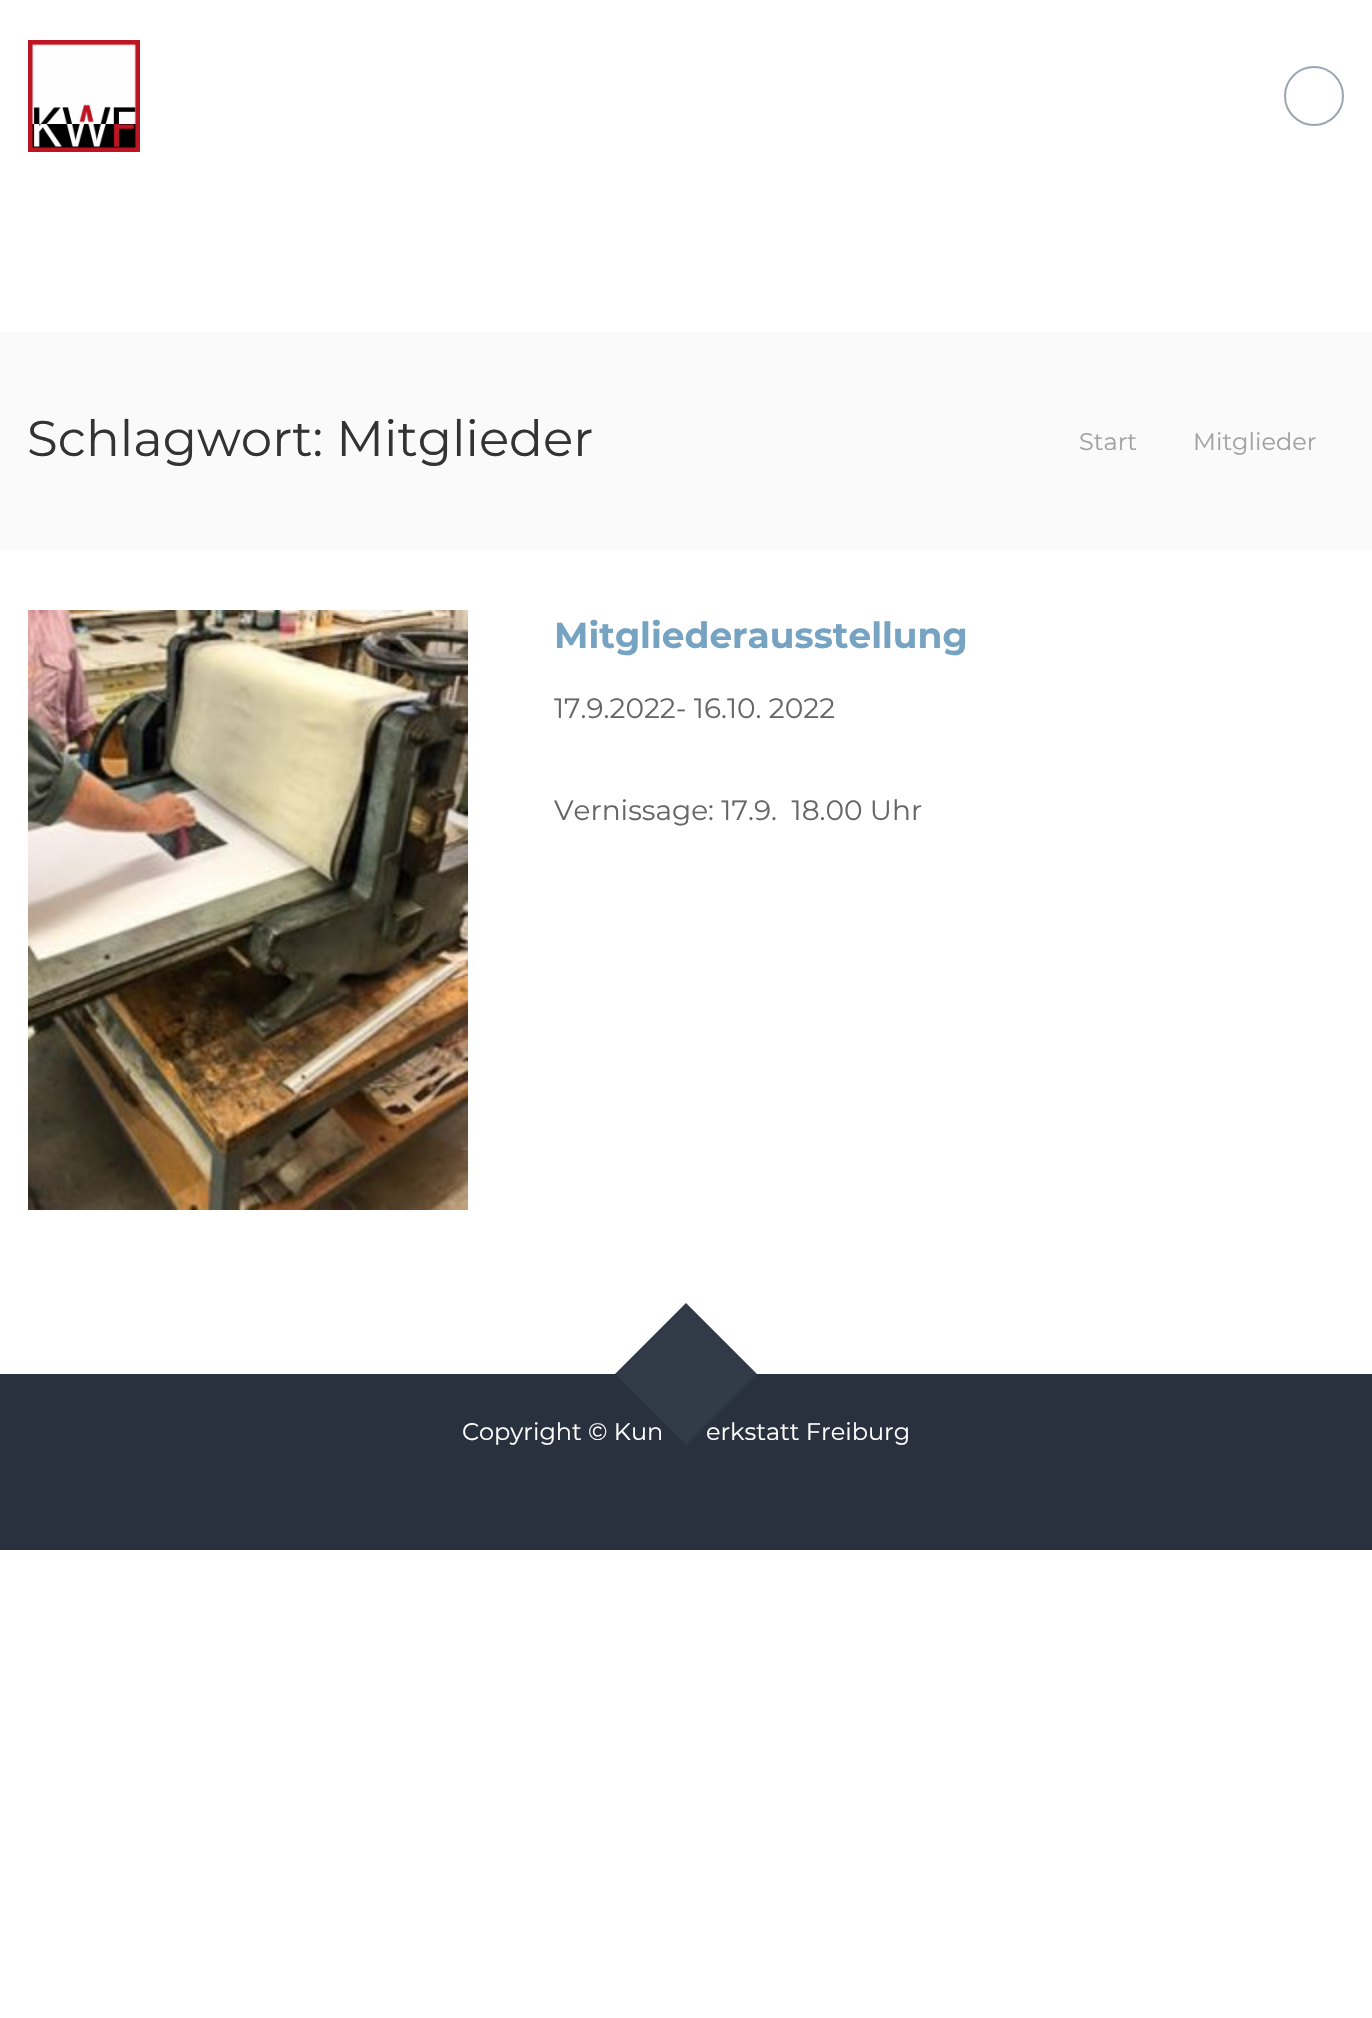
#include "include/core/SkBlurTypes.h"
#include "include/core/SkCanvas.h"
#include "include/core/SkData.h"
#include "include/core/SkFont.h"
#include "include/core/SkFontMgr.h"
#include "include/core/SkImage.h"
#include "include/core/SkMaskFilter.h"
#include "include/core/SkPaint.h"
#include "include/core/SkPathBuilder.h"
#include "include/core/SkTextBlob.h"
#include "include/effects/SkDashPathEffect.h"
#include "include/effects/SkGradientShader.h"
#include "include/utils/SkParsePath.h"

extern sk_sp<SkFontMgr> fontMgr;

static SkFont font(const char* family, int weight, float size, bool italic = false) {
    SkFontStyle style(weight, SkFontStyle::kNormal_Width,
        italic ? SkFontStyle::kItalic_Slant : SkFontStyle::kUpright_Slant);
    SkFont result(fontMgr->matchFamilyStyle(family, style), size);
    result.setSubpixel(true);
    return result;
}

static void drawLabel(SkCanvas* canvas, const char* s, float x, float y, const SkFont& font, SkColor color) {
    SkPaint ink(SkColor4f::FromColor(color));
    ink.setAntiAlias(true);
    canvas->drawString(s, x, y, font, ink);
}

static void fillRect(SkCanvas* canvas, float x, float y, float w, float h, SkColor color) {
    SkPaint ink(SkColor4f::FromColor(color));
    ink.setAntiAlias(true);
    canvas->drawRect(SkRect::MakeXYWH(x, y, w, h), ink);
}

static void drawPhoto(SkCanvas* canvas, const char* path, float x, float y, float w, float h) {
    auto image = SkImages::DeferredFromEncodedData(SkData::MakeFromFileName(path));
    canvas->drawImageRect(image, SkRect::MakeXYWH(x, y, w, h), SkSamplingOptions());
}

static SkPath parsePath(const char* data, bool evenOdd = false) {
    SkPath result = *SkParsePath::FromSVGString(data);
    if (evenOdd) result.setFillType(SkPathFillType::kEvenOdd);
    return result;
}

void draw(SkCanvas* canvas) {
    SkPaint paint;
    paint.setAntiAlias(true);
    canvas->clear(0xFFFFFFFF);
    drawPhoto(canvas, "assets/img1.png", 28, 40, 112, 112);
    paint.setStroke(true);
    paint.setStrokeWidth(2);
    paint.setColor(0xFF9CA6B2);
    canvas->drawCircle(1314, 96, 29, paint);
    fillRect(canvas, 0, 332, 1372, 218, 0xFFFAFAFA);
    SkFont font1 = font("Montserrat", 400, 50);
    drawLabel(canvas, "Schlagwort: Mitglieder", 27, 456, font1, 0xFF333333);
    SkFont font2 = font("Montserrat", 400, 24);
    drawLabel(canvas, "Start", 1079, 450, font2, 0xFFA1A1A1);
    drawLabel(canvas, "Mitglieder", 1193, 450, font2, 0xFFA1A1A1);
    drawPhoto(canvas, "assets/img2.png", 28, 610, 440, 600);
    SkFont font3 = font("Montserrat", 700, 36);
    drawLabel(canvas, "Mitgliederausstellung", 554, 648, font3, 0xFF76A3C1);
    SkFont font4 = font("Montserrat", 400, 28);
    drawLabel(canvas, "17.9.2022- 16.10. 2022", 554, 718, font4, 0xFF666666);
    drawLabel(canvas, "Vernissage: 17.9.  18.00 Uhr", 554, 820, font4, 0xFF666666);
    fillRect(canvas, 0, 1374, 1372, 176, 0xFF28313D);
    drawLabel(canvas, "Copyright © Kun", 462, 1440, font2, 0xFFFFFFFF);
    drawLabel(canvas, "erkstatt Freiburg", 706, 1440, font2, 0xFFFFFFFF);
    paint.setStroke(false);
    paint.setColor(0xFF313B48);
    canvas->drawPath(parsePath("M686 1303L757 1374L686 1445L615 1374Z"), paint);
}
